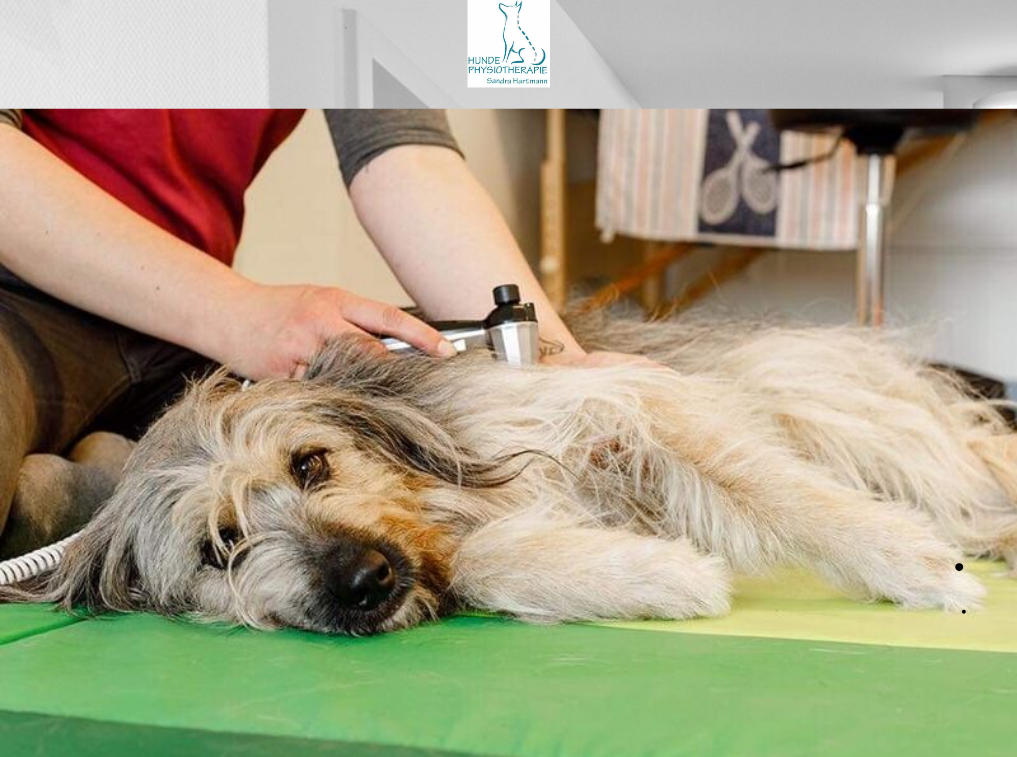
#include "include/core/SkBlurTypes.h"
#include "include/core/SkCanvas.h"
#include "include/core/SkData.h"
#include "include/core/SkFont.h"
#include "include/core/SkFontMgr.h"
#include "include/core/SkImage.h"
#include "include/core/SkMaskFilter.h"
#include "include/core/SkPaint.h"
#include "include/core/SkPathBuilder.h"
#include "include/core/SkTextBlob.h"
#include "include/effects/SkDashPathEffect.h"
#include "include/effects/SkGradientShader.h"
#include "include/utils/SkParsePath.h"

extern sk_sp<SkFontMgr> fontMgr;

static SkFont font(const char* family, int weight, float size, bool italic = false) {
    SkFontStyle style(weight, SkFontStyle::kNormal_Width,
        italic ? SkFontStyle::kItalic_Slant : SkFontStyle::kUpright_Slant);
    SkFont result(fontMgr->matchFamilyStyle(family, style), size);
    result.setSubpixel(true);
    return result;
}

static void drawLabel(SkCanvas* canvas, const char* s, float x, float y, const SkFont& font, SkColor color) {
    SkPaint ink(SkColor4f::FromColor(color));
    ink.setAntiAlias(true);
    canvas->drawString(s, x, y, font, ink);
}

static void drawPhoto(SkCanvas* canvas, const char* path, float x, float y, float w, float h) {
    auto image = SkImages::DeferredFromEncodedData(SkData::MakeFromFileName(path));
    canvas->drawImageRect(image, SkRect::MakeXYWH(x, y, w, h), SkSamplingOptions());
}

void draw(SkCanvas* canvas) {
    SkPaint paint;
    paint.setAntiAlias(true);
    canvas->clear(0xFFFFFFFF);
    drawPhoto(canvas, "assets/img1.png", 0, 0, 1017, 109);
    drawPhoto(canvas, "assets/img2.png", 467, 0, 83, 88);
    drawPhoto(canvas, "assets/img3.png", 0, 108, 1017, 649);
    SkFont font1 = font("Liberation Serif", 400, 66);
    drawLabel(canvas, ".", 951, 570, font1, 0xFF000000);
    SkFont font2 = font("Liberation Serif", 400, 31);
    drawLabel(canvas, ".", 960, 613, font2, 0xFF000000);
}
